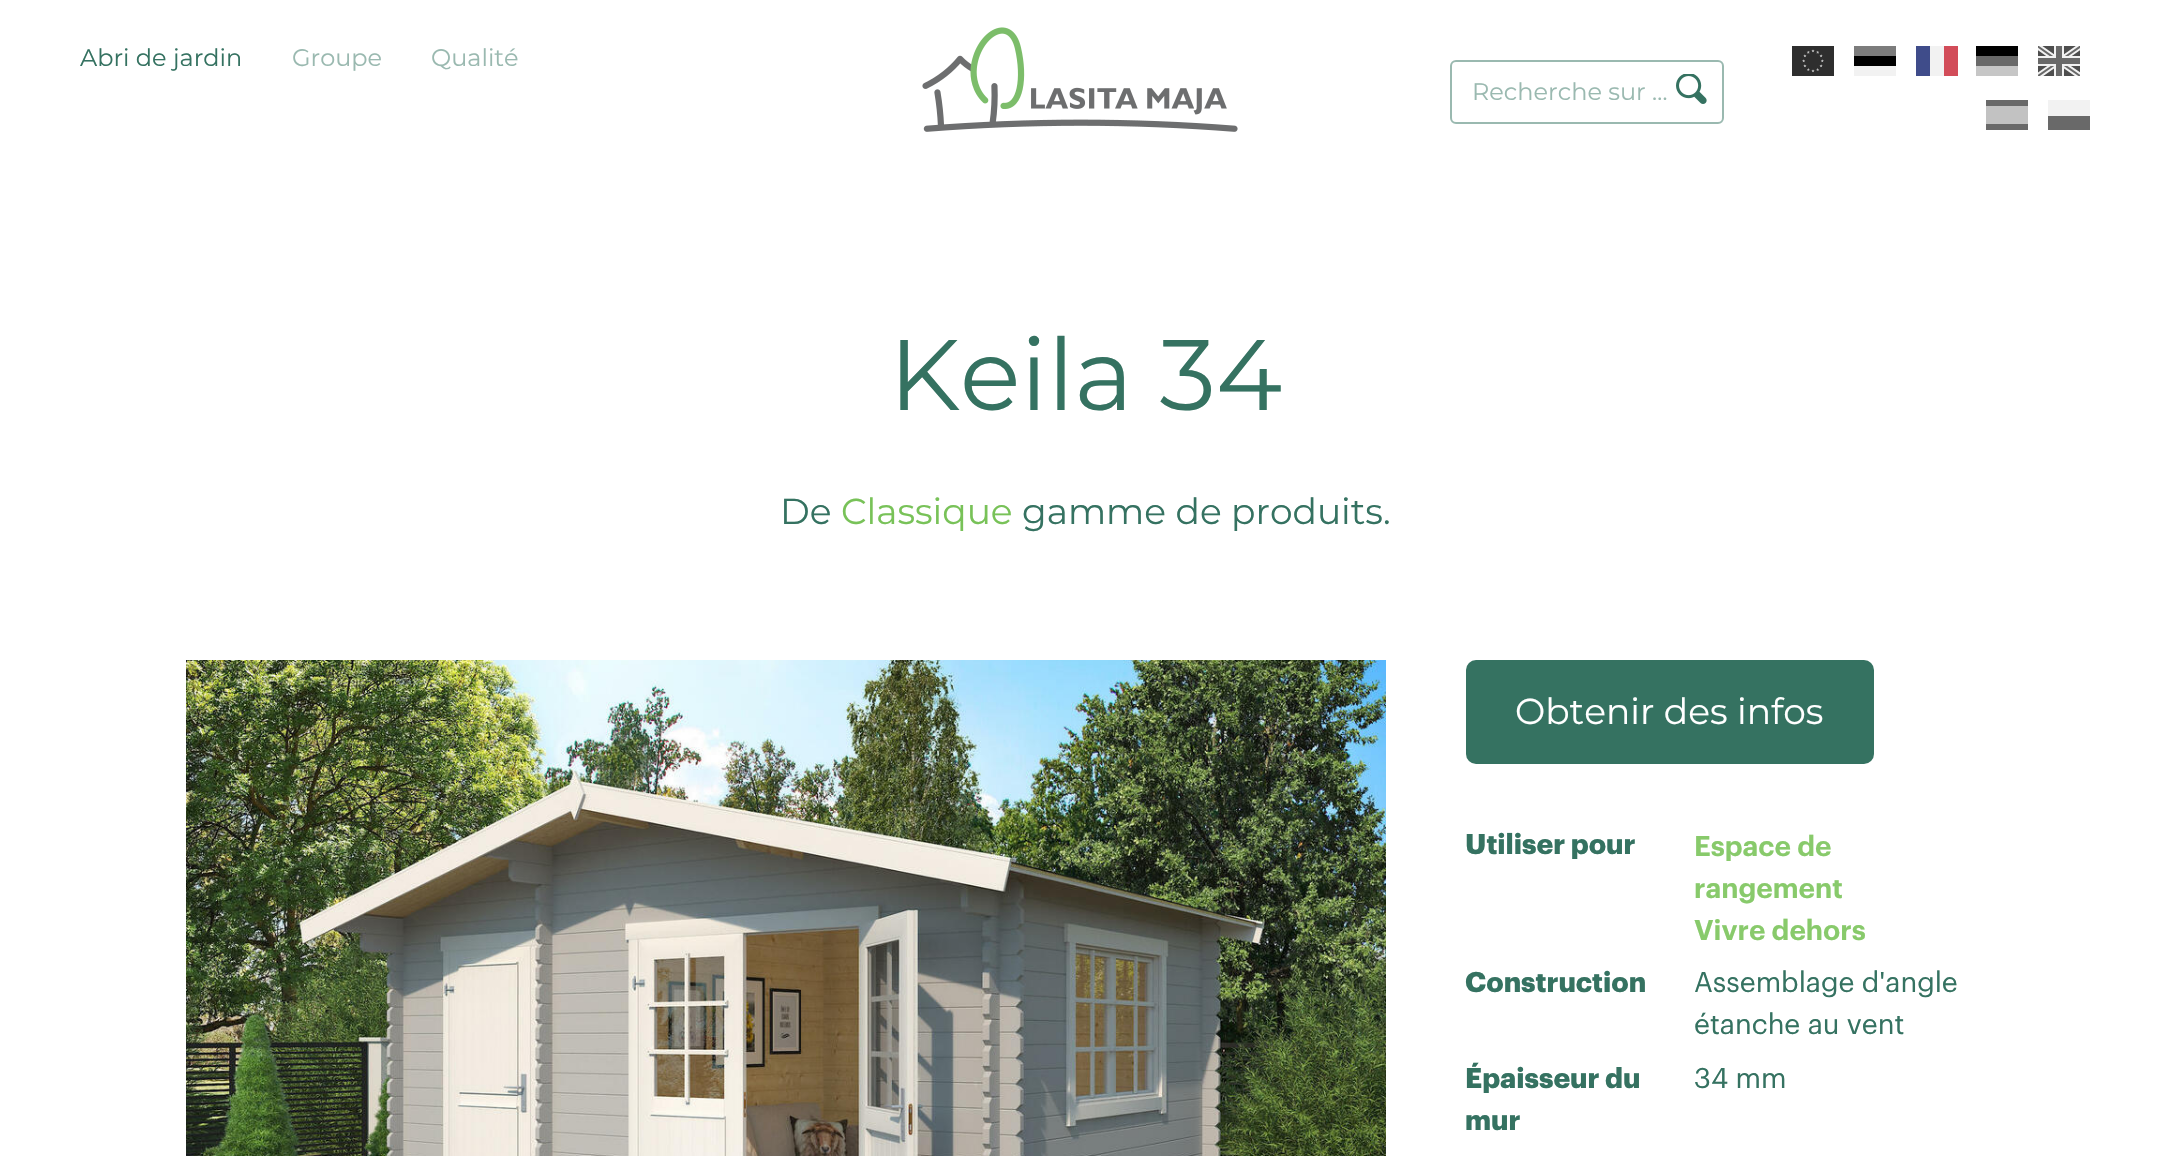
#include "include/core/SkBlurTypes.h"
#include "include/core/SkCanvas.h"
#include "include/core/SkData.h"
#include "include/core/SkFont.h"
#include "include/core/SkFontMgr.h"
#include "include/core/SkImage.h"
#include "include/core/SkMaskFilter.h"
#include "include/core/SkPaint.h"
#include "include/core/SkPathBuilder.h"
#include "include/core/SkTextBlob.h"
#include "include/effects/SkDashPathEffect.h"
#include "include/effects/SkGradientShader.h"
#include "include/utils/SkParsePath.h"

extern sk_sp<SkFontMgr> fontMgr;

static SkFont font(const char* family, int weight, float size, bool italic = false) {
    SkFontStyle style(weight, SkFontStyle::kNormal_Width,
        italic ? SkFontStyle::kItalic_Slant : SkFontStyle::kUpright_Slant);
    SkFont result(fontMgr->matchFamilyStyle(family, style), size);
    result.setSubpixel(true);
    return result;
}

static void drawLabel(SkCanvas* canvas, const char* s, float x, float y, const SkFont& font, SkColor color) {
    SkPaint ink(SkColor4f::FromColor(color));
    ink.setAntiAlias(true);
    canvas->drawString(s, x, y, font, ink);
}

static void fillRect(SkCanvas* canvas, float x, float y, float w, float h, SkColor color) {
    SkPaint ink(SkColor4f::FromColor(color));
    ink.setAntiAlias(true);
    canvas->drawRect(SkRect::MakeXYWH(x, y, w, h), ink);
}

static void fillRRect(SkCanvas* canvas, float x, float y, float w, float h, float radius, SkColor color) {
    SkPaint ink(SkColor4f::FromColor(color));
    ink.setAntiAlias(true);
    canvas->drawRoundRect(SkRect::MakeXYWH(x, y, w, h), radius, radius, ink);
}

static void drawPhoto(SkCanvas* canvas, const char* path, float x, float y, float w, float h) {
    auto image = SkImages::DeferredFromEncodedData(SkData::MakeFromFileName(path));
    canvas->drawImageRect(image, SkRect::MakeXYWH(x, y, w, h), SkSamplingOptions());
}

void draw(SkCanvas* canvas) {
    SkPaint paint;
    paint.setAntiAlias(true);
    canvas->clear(0xFFFFFFFF);
    fillRect(canvas, 2048, 100, 42, 16, 0xFFF2F2F2);
    fillRect(canvas, 1854, 66, 42, 10, 0xFFF2F2F2);
    SkFont font1 = font("Montserrat", 400, 24);
    drawLabel(canvas, "Abri de jardin", 80, 66, font1, 0xFF357261);
    drawLabel(canvas, "Groupe", 292, 66, font1, 0xFF9AB9B0);
    drawLabel(canvas, "Qualité", 431, 66, font1, 0xFF9AB9B0);
    drawPhoto(canvas, "assets/img1.png", 922, 27, 316, 105);
    paint.setStroke(true);
    paint.setStrokeWidth(2);
    paint.setColor(0xFF9AB9B0);
    canvas->drawRoundRect(SkRect::MakeXYWH(1451, 61, 272, 62), 5, 5, paint);
    drawLabel(canvas, "Recherche sur …", 1472, 100, font1, 0xFF9AB9B0);
    drawPhoto(canvas, "assets/img2.png", 1676, 74, 31, 30);
    drawPhoto(canvas, "assets/img3.png", 1792, 46, 42, 30);
    drawPhoto(canvas, "assets/img4.png", 1854, 46, 42, 20);
    drawPhoto(canvas, "assets/img5.png", 1916, 46, 42, 30);
    drawPhoto(canvas, "assets/img6.png", 1976, 46, 42, 30);
    drawPhoto(canvas, "assets/img7.png", 2038, 46, 42, 30);
    drawPhoto(canvas, "assets/img8.png", 1986, 100, 42, 30);
    fillRect(canvas, 2048, 116, 42, 14, 0xFF696969);
    SkFont font2 = font("Montserrat", 400, 100);
    drawLabel(canvas, "Keila 34", 889, 410, font2, 0xFF357261);
    SkFont font3 = font("Montserrat", 400, 36);
    drawLabel(canvas, "De", 780, 524, font3, 0xFF357261);
    drawLabel(canvas, "Classique", 841, 524, font3, 0xFF78C258);
    drawLabel(canvas, "gamme de produits.", 1022, 524, font3, 0xFF357261);
    drawPhoto(canvas, "assets/img9.png", 186, 660, 1200, 496);
    fillRRect(canvas, 1466, 660, 408, 104, 10, 0xFF357261);
    drawLabel(canvas, "Obtenir des infos", 1515, 724, font3, 0xFFFFFFFF);
    SkFont font4 = font("Graphik", 700, 28);
    drawLabel(canvas, "Utiliser pour", 1465, 854, font4, 0xFF357261);
    SkFont font5 = font("Graphik", 600, 28);
    drawLabel(canvas, "Espace de", 1694, 856, font5, 0xFF88CA6B);
    drawLabel(canvas, "rangement", 1694, 898, font5, 0xFF88CA6B);
    drawLabel(canvas, "Vivre dehors", 1694, 940, font5, 0xFF88CA6B);
    drawLabel(canvas, "Construction", 1465, 992, font4, 0xFF357261);
    SkFont font6 = font("Graphik", 400, 28);
    drawLabel(canvas, "Assemblage d'angle", 1694, 992, font6, 0xFF357261);
    drawLabel(canvas, "étanche au vent", 1694, 1034, font6, 0xFF357261);
    drawLabel(canvas, "Épaisseur du", 1465, 1088, font4, 0xFF357261);
    drawLabel(canvas, "mur", 1465, 1130, font4, 0xFF357261);
    drawLabel(canvas, "34 mm", 1694, 1088, font6, 0xFF357261);
}
